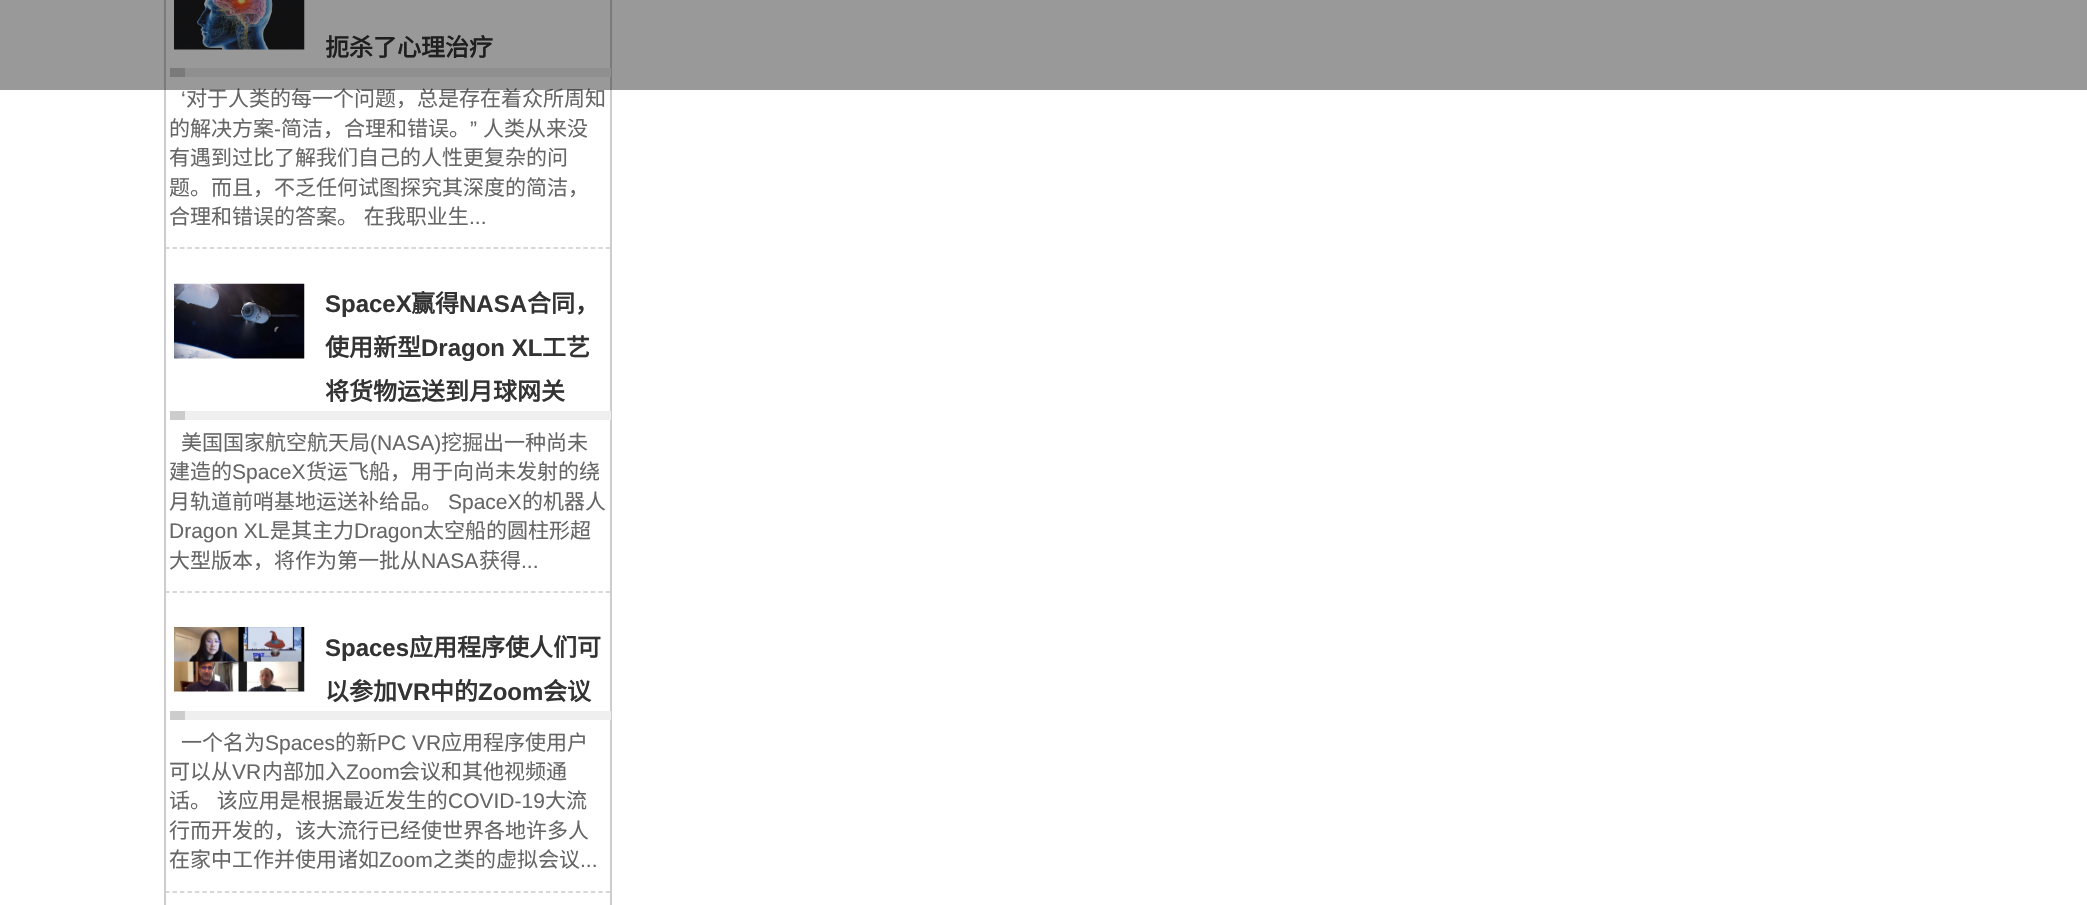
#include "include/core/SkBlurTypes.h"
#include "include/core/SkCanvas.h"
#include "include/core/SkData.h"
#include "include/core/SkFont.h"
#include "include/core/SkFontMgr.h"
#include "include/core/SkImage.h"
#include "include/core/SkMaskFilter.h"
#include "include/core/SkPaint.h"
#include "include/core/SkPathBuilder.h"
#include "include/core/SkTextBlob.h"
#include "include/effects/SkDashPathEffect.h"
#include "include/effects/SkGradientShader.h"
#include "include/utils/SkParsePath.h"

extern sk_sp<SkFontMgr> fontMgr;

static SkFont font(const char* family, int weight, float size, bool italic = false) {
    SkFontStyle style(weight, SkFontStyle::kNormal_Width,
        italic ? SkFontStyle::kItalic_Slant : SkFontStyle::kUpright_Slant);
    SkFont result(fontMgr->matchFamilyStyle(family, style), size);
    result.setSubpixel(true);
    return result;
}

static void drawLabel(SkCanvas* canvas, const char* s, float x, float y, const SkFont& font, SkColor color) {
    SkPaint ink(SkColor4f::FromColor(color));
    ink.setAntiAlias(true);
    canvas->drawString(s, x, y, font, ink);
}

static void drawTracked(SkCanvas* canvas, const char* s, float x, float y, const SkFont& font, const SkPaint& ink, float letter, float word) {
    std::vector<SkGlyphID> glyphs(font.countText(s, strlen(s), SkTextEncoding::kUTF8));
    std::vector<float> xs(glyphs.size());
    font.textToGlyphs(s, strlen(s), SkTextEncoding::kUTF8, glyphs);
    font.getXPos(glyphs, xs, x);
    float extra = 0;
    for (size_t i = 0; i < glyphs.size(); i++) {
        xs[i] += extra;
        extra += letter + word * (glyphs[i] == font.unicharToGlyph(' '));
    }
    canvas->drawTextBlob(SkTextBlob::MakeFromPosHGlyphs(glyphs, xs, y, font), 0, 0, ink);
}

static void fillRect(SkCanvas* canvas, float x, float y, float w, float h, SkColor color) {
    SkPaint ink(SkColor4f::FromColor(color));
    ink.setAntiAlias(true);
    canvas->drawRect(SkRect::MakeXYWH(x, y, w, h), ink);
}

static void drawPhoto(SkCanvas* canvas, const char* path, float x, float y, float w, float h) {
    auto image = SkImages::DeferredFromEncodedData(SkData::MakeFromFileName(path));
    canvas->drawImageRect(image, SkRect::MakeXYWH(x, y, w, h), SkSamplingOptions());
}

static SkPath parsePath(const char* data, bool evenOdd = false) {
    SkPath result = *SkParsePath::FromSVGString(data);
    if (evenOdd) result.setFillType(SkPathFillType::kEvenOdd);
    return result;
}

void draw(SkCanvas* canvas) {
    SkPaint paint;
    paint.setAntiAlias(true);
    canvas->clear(0xFFFFFFFF);
    paint.setStroke(true);
    paint.setStrokeWidth(2);
    paint.setColor(0xFFCCCCCC);
    canvas->drawRect(SkRect::MakeXYWH(165, -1, 446, 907), paint);
    drawPhoto(canvas, "assets/img1.png", 174, 0, 131, 50);
    SkFont font1 = font("Noto Sans CJK SC", 700, 24);
    drawLabel(canvas, "扼杀了心理治疗", 325, 56, font1, 0xFF333333);
    fillRect(canvas, 185, 68, 426, 9, 0xFFEFEFEF);
    fillRect(canvas, 170, 68, 15, 9, 0xFFCCCCCC);
    SkFont font2 = font("Noto Sans CJK SC", 400, 21);
    drawLabel(canvas, "对于人类的每一个问题，总是存在着众所周知", 186, 106, font2, 0xFF666666);
    fillRect(canvas, 0, 0, 2087, 90, 0x66000000);
    paint.setStrokeWidth(1.5f);
    paint.setPathEffect(SkDashPathEffect::Make({{4.5f, 2.97f}}, 0));
    canvas->drawPath(parsePath("M165 248H610.5"), paint);
    paint.setPathEffect(nullptr);
    SkFont font3 = font("Liberation Sans", 400, 21);
    drawLabel(canvas, "‘", 181, 106, font3, 0xFF666666);
    drawLabel(canvas, "的解决方案", 169, 136, font2, 0xFF666666);
    drawLabel(canvas, "简洁，合理和错误。", 281, 136, font2, 0xFF666666);
    drawLabel(canvas, "”", 470, 136, font3, 0xFF666666);
    drawLabel(canvas, "人类从来没", 483, 136, font2, 0xFF666666);
    drawLabel(canvas, "-", 274, 136, font3, 0xFF666666);
    drawLabel(canvas, "有遇到过比了解我们自己的人性更复杂的问", 169, 165, font2, 0xFF666666);
    drawLabel(canvas, "题。而且，不乏任何试图探究其深度的简洁，", 169, 195, font2, 0xFF666666);
    paint.setStroke(false);
    paint.setColor(0xFF666666);
    drawTracked(canvas, "合理和错误的答案。 在我职业生", 169, 224, font2, paint, 0, 1);
    drawLabel(canvas, "...", 469, 224, font3, 0xFF666666);
    paint.setStroke(true);
    paint.setColor(0xFFCCCCCC);
    paint.setPathEffect(SkDashPathEffect::Make({{4.5f, 2.97f}}, 0));
    canvas->drawPath(parsePath("M165 592H610.5"), paint);
    paint.setPathEffect(nullptr);
    drawPhoto(canvas, "assets/img2.png", 174, 283, 131, 76);
    SkFont font4 = font("Liberation Sans", 700, 24);
    drawLabel(canvas, "SpaceX", 325, 312, font4, 0xFF333333);
    drawLabel(canvas, "赢得", 411, 312, font1, 0xFF333333);
    drawLabel(canvas, "NASA", 459, 312, font4, 0xFF333333);
    drawLabel(canvas, "合同，", 527, 312, font1, 0xFF333333);
    drawLabel(canvas, "使用新型", 325, 356, font1, 0xFF333333);
    drawLabel(canvas, "Dragon XL", 421, 356, font4, 0xFF333333);
    drawLabel(canvas, "工艺", 542, 356, font1, 0xFF333333);
    drawLabel(canvas, "将货物运送到月球网关", 325, 400, font1, 0xFF333333);
    fillRect(canvas, 185, 411, 426, 9, 0xFFEFEFEF);
    fillRect(canvas, 170, 411, 15, 9, 0xFFCCCCCC);
    drawLabel(canvas, "美国国家航空航天局", 181, 450, font2, 0xFF666666);
    drawLabel(canvas, "(NASA)", 370, 450, font3, 0xFF666666);
    drawLabel(canvas, "挖掘出一种尚未", 441, 450, font2, 0xFF666666);
    drawLabel(canvas, "建造的", 169, 479, font2, 0xFF666666);
    drawLabel(canvas, "SpaceX", 232, 479, font3, 0xFF666666);
    drawLabel(canvas, "货运飞船，用于向尚未发射的绕", 306, 479, font2, 0xFF666666);
    drawLabel(canvas, "月轨道前哨基地运送补给品。", 169, 509, font2, 0xFF666666);
    drawLabel(canvas, "SpaceX", 448, 509, font3, 0xFF666666);
    drawLabel(canvas, "的机器人", 522, 509, font2, 0xFF666666);
    drawLabel(canvas, "Dragon XL", 169, 538, font3, 0xFF666666);
    drawLabel(canvas, "是其主力", 270, 538, font2, 0xFF666666);
    drawLabel(canvas, "Dragon", 354, 538, font3, 0xFF666666);
    drawLabel(canvas, "太空船的圆柱形超", 423, 538, font2, 0xFF666666);
    drawLabel(canvas, "大型版本，将作为第一批从", 169, 568, font2, 0xFF666666);
    drawLabel(canvas, "NASA", 421, 568, font3, 0xFF666666);
    drawLabel(canvas, "获得", 479, 568, font2, 0xFF666666);
    drawLabel(canvas, "...", 521, 568, font3, 0xFF666666);
    paint.setPathEffect(SkDashPathEffect::Make({{4.5f, 2.97f}}, 0));
    canvas->drawPath(parsePath("M165 892H610.5"), paint);
    paint.setPathEffect(nullptr);
    drawPhoto(canvas, "assets/img3.png", 174, 627, 131, 65);
    drawLabel(canvas, "Spaces", 325, 656, font4, 0xFF333333);
    drawLabel(canvas, "应用程序使人们可", 409, 656, font1, 0xFF333333);
    drawLabel(canvas, "以参加", 325, 700, font1, 0xFF333333);
    drawLabel(canvas, "VR", 397, 700, font4, 0xFF333333);
    drawLabel(canvas, "中的", 430, 700, font1, 0xFF333333);
    drawLabel(canvas, "Zoom", 478, 700, font4, 0xFF333333);
    drawLabel(canvas, "会议", 543, 700, font1, 0xFF333333);
    fillRect(canvas, 185, 711, 426, 9, 0xFFEFEFEF);
    fillRect(canvas, 170, 711, 15, 9, 0xFFCCCCCC);
    drawLabel(canvas, "一个名为", 181, 750, font2, 0xFF666666);
    drawLabel(canvas, "Spaces", 265, 750, font3, 0xFF666666);
    drawLabel(canvas, "的新", 335, 750, font2, 0xFF666666);
    drawLabel(canvas, "PC VR", 377, 750, font3, 0xFF666666);
    drawLabel(canvas, "应用程序使用户", 441, 750, font2, 0xFF666666);
    drawLabel(canvas, "可以从", 169, 779, font2, 0xFF666666);
    drawLabel(canvas, "VR", 232, 779, font3, 0xFF666666);
    drawLabel(canvas, "内部加入", 262, 779, font2, 0xFF666666);
    drawLabel(canvas, "Zoom", 346, 779, font3, 0xFF666666);
    drawLabel(canvas, "会议和其他视频通", 399, 779, font2, 0xFF666666);
    paint.setStroke(false);
    paint.setColor(0xFF666666);
    drawTracked(canvas, "话。 该应用是根据最近发生的", 169, 808, font2, paint, 0, 1);
    drawLabel(canvas, "COVID-19", 448, 808, font3, 0xFF666666);
    drawLabel(canvas, "大流", 545, 808, font2, 0xFF666666);
    drawLabel(canvas, "行而开发的，该大流行已经使世界各地许多人", 169, 838, font2, 0xFF666666);
    drawLabel(canvas, "在家中工作并使用诸如", 169, 867, font2, 0xFF666666);
    drawLabel(canvas, "Zoom", 379, 867, font3, 0xFF666666);
    drawLabel(canvas, "之类的虚拟会议", 433, 867, font2, 0xFF666666);
    drawLabel(canvas, "...", 580, 867, font3, 0xFF666666);
}
